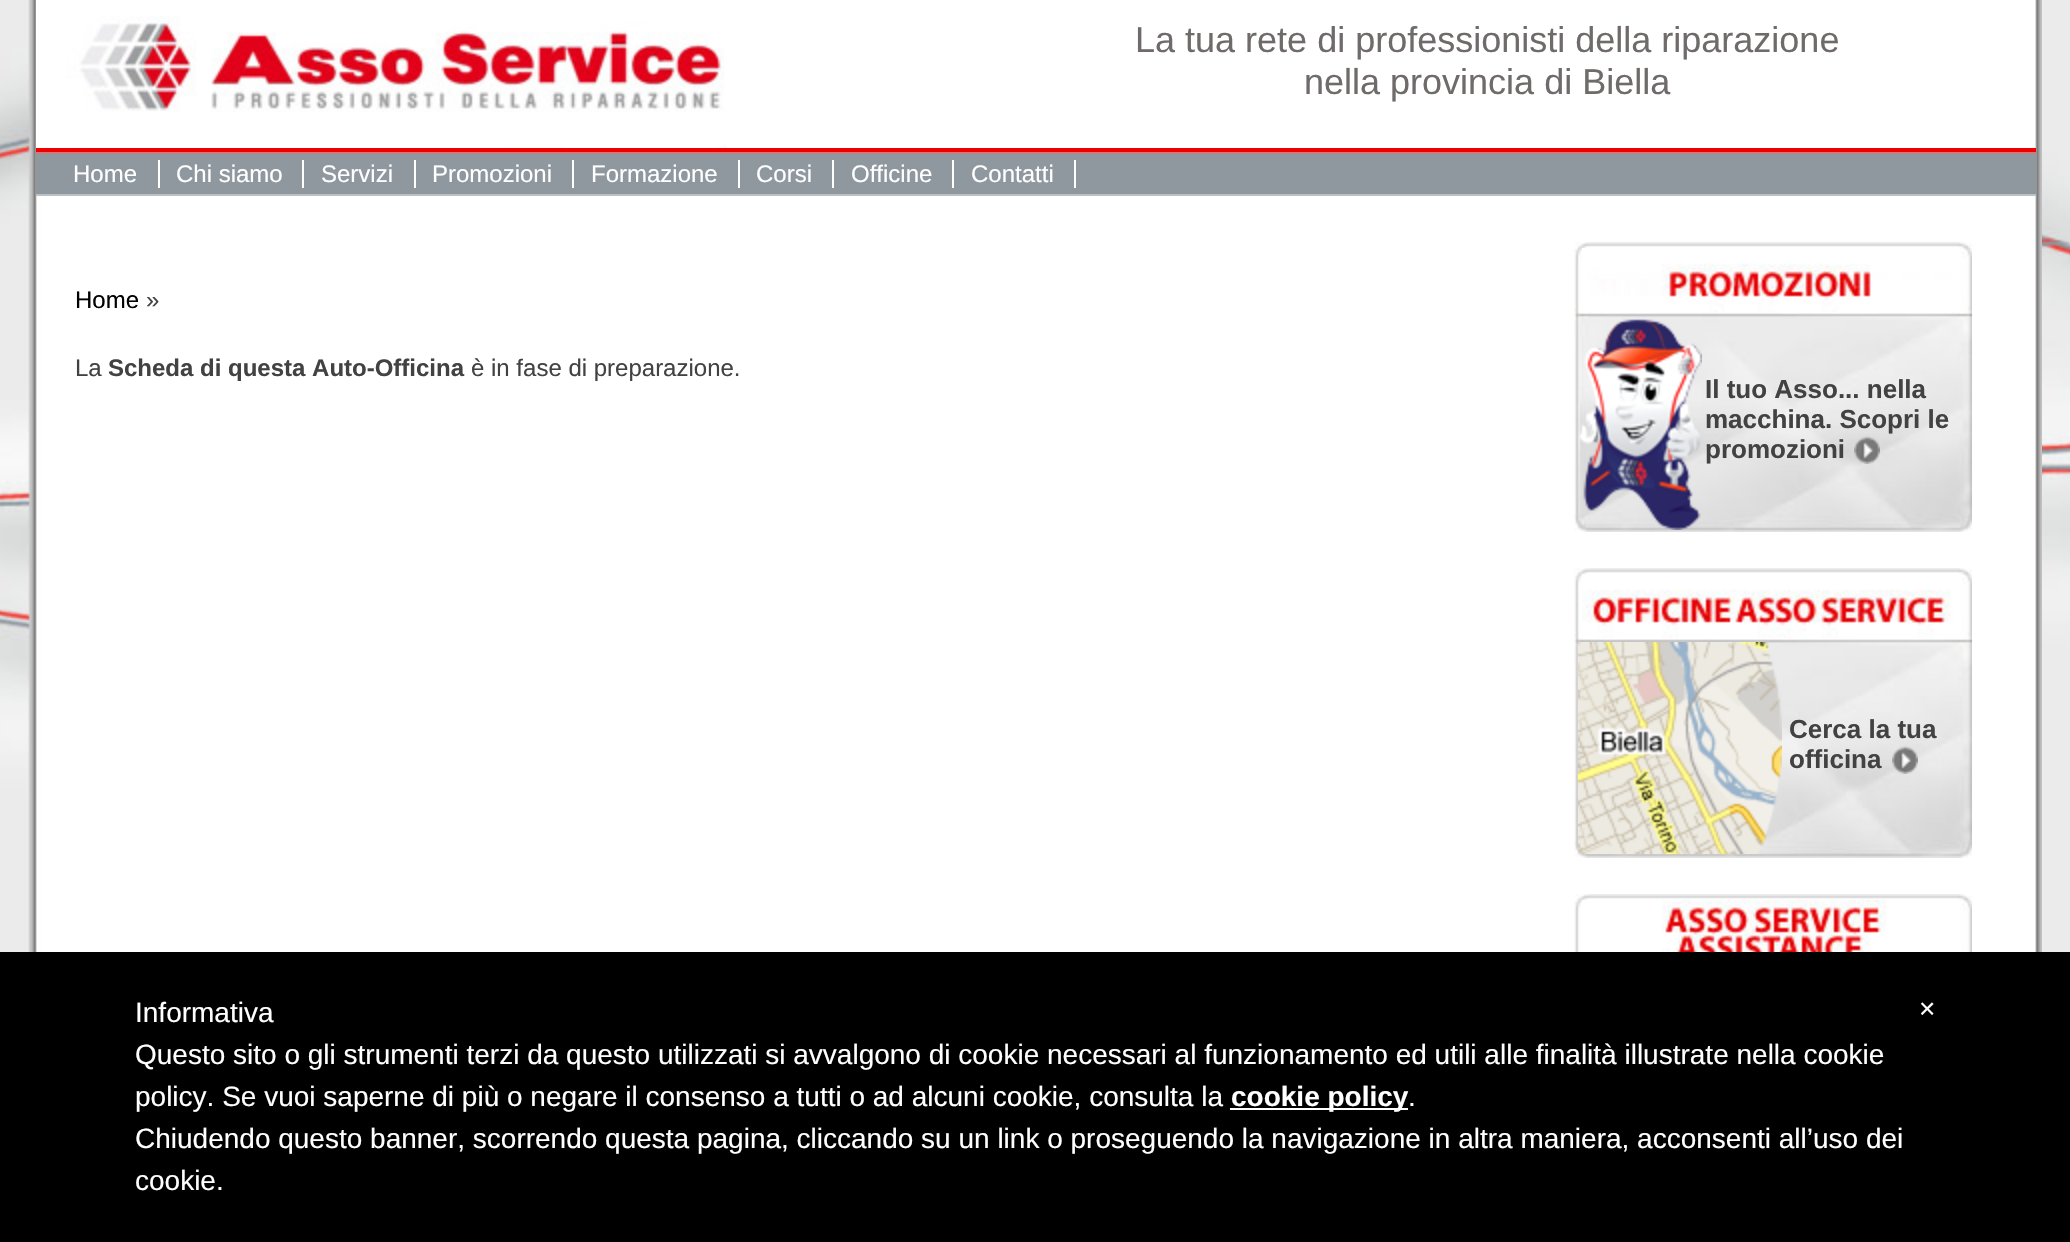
#include "include/core/SkBlurTypes.h"
#include "include/core/SkCanvas.h"
#include "include/core/SkData.h"
#include "include/core/SkFont.h"
#include "include/core/SkFontMgr.h"
#include "include/core/SkImage.h"
#include "include/core/SkMaskFilter.h"
#include "include/core/SkPaint.h"
#include "include/core/SkPathBuilder.h"
#include "include/core/SkTextBlob.h"
#include "include/effects/SkDashPathEffect.h"
#include "include/effects/SkGradientShader.h"
#include "include/utils/SkParsePath.h"

extern sk_sp<SkFontMgr> fontMgr;

static SkFont font(const char* family, int weight, float size, bool italic = false) {
    SkFontStyle style(weight, SkFontStyle::kNormal_Width,
        italic ? SkFontStyle::kItalic_Slant : SkFontStyle::kUpright_Slant);
    SkFont result(fontMgr->matchFamilyStyle(family, style), size);
    result.setSubpixel(true);
    return result;
}

static void drawLabel(SkCanvas* canvas, const char* s, float x, float y, const SkFont& font, SkColor color) {
    SkPaint ink(SkColor4f::FromColor(color));
    ink.setAntiAlias(true);
    canvas->drawString(s, x, y, font, ink);
}

static void fillRect(SkCanvas* canvas, float x, float y, float w, float h, SkColor color) {
    SkPaint ink(SkColor4f::FromColor(color));
    ink.setAntiAlias(true);
    canvas->drawRect(SkRect::MakeXYWH(x, y, w, h), ink);
}

static void drawPhoto(SkCanvas* canvas, const char* path, float x, float y, float w, float h) {
    auto image = SkImages::DeferredFromEncodedData(SkData::MakeFromFileName(path));
    canvas->drawImageRect(image, SkRect::MakeXYWH(x, y, w, h), SkSamplingOptions());
}

void draw(SkCanvas* canvas) {
    SkPaint paint;
    paint.setAntiAlias(true);
    canvas->clear(0xFFFFFFFF);
    drawPhoto(canvas, "assets/img1.png", 0, 0, 2070, 952);
    drawPhoto(canvas, "assets/img2.png", 30, 0, 2012, 152);
    fillRect(canvas, 36, 148, 2000, 4, 0xFFEF0000);
    drawPhoto(canvas, "assets/img3.png", 36, 0, 691, 148);
    SkFont font1 = font("Liberation Sans", 400, 36);
    drawLabel(canvas, "La tua rete di professionisti della riparazione", 1135, 52, font1, 0xFF706B6B);
    drawLabel(canvas, "nella provincia di Biella", 1304, 94, font1, 0xFF706B6B);
    drawPhoto(canvas, "assets/img4.png", 30, 152, 2012, 44);
    fillRect(canvas, 36, 154, 2000, 40, 0xFF8F979F);
    fillRect(canvas, 36, 152, 2000, 2, 0xFFCC7A7D);
    fillRect(canvas, 36, 194, 2000, 2, 0xFFBCC1C5);
    SkFont font2 = font("Liberation Sans", 400, 24);
    drawLabel(canvas, "Home", 73, 182, font2, 0xFFFFFFFF);
    fillRect(canvas, 158, 160, 2, 28, 0xFFFFFFFF);
    drawLabel(canvas, "Chi siamo", 176, 182, font2, 0xFFFFFFFF);
    fillRect(canvas, 302, 160, 2, 28, 0xFFFFFFFF);
    drawLabel(canvas, "Servizi", 321, 182, font2, 0xFFFFFFFF);
    fillRect(canvas, 414, 160, 2, 28, 0xFFFFFFFF);
    drawLabel(canvas, "Promozioni", 432, 182, font2, 0xFFFFFFFF);
    fillRect(canvas, 572, 160, 2, 28, 0xFFFFFFFF);
    drawLabel(canvas, "Formazione", 591, 182, font2, 0xFFFFFFFF);
    fillRect(canvas, 738, 160, 2, 28, 0xFFFFFFFF);
    drawLabel(canvas, "Corsi", 756, 182, font2, 0xFFFFFFFF);
    fillRect(canvas, 832, 160, 2, 28, 0xFFFFFFFF);
    drawLabel(canvas, "Officine", 851, 182, font2, 0xFFFFFFFF);
    fillRect(canvas, 952, 160, 2, 28, 0xFFFFFFFF);
    drawLabel(canvas, "Contatti", 971, 182, font2, 0xFFFFFFFF);
    fillRect(canvas, 1074, 160, 2, 28, 0xFFFFFFFF);
    drawPhoto(canvas, "assets/img5.png", 30, 196, 2012, 756);
    drawLabel(canvas, "Home", 75, 308, font2, 0xFF000000);
    drawLabel(canvas, "»", 146, 308, font2, 0xFF434242);
    drawLabel(canvas, "La", 75, 376, font2, 0xFF434242);
    SkFont font3 = font("Liberation Sans", 700, 24);
    drawLabel(canvas, "Scheda di questa Auto-Officina", 108, 376, font3, 0xFF434242);
    drawLabel(canvas, "è in fase di preparazione.", 471, 376, font2, 0xFF434242);
    drawPhoto(canvas, "assets/img6.png", 1574, 242, 398, 290);
    drawPhoto(canvas, "assets/img7.png", 1582, 248, 378, 64);
    drawPhoto(canvas, "assets/img8.png", 1579, 319, 123, 211);
    SkFont font4 = font("Liberation Sans", 700, 26);
    drawLabel(canvas, "Il tuo Asso... nella", 1705, 398, font4, 0xFF434242);
    drawLabel(canvas, "macchina. Scopri le", 1705, 428, font4, 0xFF434242);
    drawLabel(canvas, "promozioni", 1705, 458, font4, 0xFF434242);
    drawPhoto(canvas, "assets/img9.png", 1854, 436, 26, 28);
    drawPhoto(canvas, "assets/img6.png", 1574, 568, 398, 290);
    drawPhoto(canvas, "assets/img10.png", 1582, 574, 378, 64);
    drawPhoto(canvas, "assets/img11.png", 1578, 642, 204, 212);
    drawLabel(canvas, "Cerca la tua", 1789, 738, font4, 0xFF434242);
    drawLabel(canvas, "officina", 1789, 768, font4, 0xFF434242);
    drawPhoto(canvas, "assets/img12.png", 1892, 746, 26, 28);
    drawPhoto(canvas, "assets/img13.png", 1574, 894, 398, 58);
    drawPhoto(canvas, "assets/img14.png", 1582, 900, 378, 52);
    fillRect(canvas, 0, 952, 2070, 290, 0xFF000000);
    SkFont font5 = font("Liberation Sans", 400, 28);
    drawLabel(canvas, "Informativa", 135, 1022, font5, 0xFFFFFFFF);
    drawLabel(canvas, "Questo sito o gli strumenti terzi da questo utilizzati si avvalgono di cookie necessari al funzionamento ed utili alle finalità illustrate nella cookie", 135, 1064, font5, 0xFFFFFFFF);
    drawLabel(canvas, "policy. Se vuoi saperne di più o negare il consenso a tutti o ad alcuni cookie, consulta la", 135, 1106, font5, 0xFFFFFFFF);
    fillRect(canvas, 1230, 1108, 178, 2, 0xFFFFFFFF);
    SkFont font6 = font("Liberation Sans", 700, 28);
    drawLabel(canvas, "cookie policy", 1231, 1106, font6, 0xFFFFFFFF);
    drawLabel(canvas, ".", 1408, 1106, font5, 0xFFFFFFFF);
    drawLabel(canvas, "Chiudendo questo banner, scorrendo questa pagina, cliccando su un link o proseguendo la navigazione in altra maniera, acconsenti all’uso dei", 135, 1148, font5, 0xFFFFFFFF);
    drawLabel(canvas, "cookie.", 135, 1190, font5, 0xFFFFFFFF);
    drawLabel(canvas, "×", 1919, 1018, font5, 0xFFFFFFFF);
}
